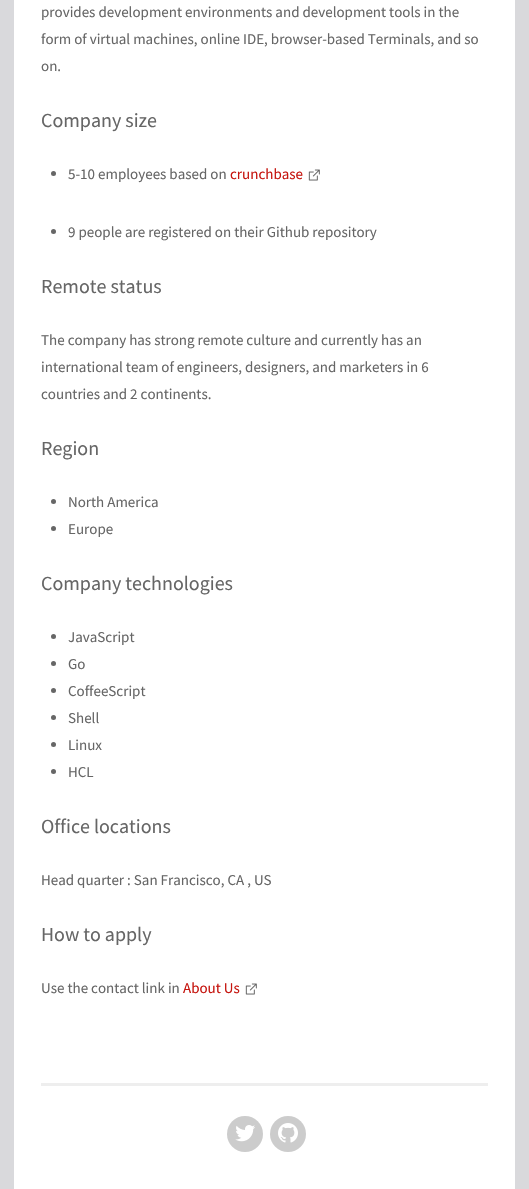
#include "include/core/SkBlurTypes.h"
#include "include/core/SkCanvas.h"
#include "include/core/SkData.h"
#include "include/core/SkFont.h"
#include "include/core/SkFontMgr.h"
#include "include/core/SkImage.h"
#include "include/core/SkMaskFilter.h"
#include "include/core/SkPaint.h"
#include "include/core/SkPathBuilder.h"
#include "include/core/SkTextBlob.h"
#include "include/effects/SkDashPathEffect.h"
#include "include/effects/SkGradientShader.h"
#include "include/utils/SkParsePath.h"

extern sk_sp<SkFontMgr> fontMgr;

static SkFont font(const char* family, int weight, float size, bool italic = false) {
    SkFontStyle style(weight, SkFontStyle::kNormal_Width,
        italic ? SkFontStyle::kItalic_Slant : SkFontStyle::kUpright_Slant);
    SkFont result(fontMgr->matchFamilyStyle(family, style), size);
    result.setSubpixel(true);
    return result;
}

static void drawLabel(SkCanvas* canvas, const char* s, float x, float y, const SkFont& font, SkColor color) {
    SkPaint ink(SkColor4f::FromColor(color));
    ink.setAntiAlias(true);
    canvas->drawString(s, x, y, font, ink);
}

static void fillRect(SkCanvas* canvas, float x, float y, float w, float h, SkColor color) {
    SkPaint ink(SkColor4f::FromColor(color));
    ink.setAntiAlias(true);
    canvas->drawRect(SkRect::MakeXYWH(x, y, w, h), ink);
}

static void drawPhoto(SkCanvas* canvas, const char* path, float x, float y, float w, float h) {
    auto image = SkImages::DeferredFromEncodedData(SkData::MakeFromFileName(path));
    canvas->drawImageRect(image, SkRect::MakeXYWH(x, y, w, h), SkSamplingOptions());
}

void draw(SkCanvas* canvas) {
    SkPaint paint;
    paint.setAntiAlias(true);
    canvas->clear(0xFFD9D9DC);
    fillRect(canvas, 14, 0, 501, 1189, 0xFFFFFFFF);
    SkFont font1 = font("Source Sans Pro", 400, 15);
    drawLabel(canvas, "provides development environments and development tools in the", 41, 17, font1, 0xFF666666);
    drawLabel(canvas, "form of virtual machines, online IDE, browser-based Terminals, and so", 41, 44, font1, 0xFF666666);
    drawLabel(canvas, "on.", 41, 71, font1, 0xFF666666);
    SkFont font2 = font("Source Sans Pro", 400, 20);
    drawLabel(canvas, "Company size", 41, 127, font2, 0xFF666666);
    paint.setColor(0xFF666666);
    canvas->drawCircle(53.5f, 173.5f, 2.5f, paint);
    drawLabel(canvas, "5-10 employees based on", 68, 179, font1, 0xFF666666);
    drawLabel(canvas, "crunchbase", 230, 179, font1, 0xFFC61610);
    drawPhoto(canvas, "assets/img1.png", 308, 169, 12, 12);
    canvas->drawCircle(53.5f, 231.5f, 2.5f, paint);
    drawLabel(canvas, "9 people are registered on their Github repository", 68, 237, font1, 0xFF666666);
    drawLabel(canvas, "Remote status", 41, 293, font2, 0xFF666666);
    drawLabel(canvas, "The company has strong remote culture and currently has an", 41, 345, font1, 0xFF666666);
    drawLabel(canvas, "international team of engineers, designers, and marketers in 6", 41, 372, font1, 0xFF666666);
    drawLabel(canvas, "countries and 2 continents.", 41, 399, font1, 0xFF666666);
    drawLabel(canvas, "Region", 41, 455, font2, 0xFF666666);
    canvas->drawCircle(53.5f, 501.5f, 2.5f, paint);
    drawLabel(canvas, "North America", 68, 507, font1, 0xFF666666);
    canvas->drawCircle(53.5f, 528.5f, 2.5f, paint);
    drawLabel(canvas, "Europe", 68, 534, font1, 0xFF666666);
    drawLabel(canvas, "Company technologies", 41, 590, font2, 0xFF666666);
    canvas->drawCircle(53.5f, 636.5f, 2.5f, paint);
    drawLabel(canvas, "JavaScript", 68, 642, font1, 0xFF666666);
    canvas->drawCircle(53.5f, 663.5f, 2.5f, paint);
    drawLabel(canvas, "Go", 68, 669, font1, 0xFF666666);
    canvas->drawCircle(53.5f, 690.5f, 2.5f, paint);
    drawLabel(canvas, "CoffeeScript", 68, 696, font1, 0xFF666666);
    canvas->drawCircle(53.5f, 717.5f, 2.5f, paint);
    drawLabel(canvas, "Shell", 68, 723, font1, 0xFF666666);
    canvas->drawCircle(53.5f, 744.5f, 2.5f, paint);
    drawLabel(canvas, "Linux", 68, 750, font1, 0xFF666666);
    canvas->drawCircle(53.5f, 771.5f, 2.5f, paint);
    drawLabel(canvas, "HCL", 68, 777, font1, 0xFF666666);
    drawLabel(canvas, "Office locations", 41, 833, font2, 0xFF666666);
    drawLabel(canvas, "Head quarter : San Francisco, CA , US", 41, 885, font1, 0xFF666666);
    drawLabel(canvas, "How to apply", 41, 941, font2, 0xFF666666);
    drawLabel(canvas, "Use the contact link in", 41, 993, font1, 0xFF666666);
    drawLabel(canvas, "About Us", 183, 993, font1, 0xFFC61610);
    drawPhoto(canvas, "assets/img1.png", 245, 983, 12, 12);
    fillRect(canvas, 41, 1083, 447, 3, 0xFFEEEEEE);
    paint.setColor(0xFFCCCCCC);
    canvas->drawCircle(245, 1134, 18, paint);
    drawPhoto(canvas, "assets/img2.png", 235, 1125, 20, 17);
    canvas->drawCircle(288, 1134, 18, paint);
    drawPhoto(canvas, "assets/img3.png", 278, 1123, 20, 20);
}
